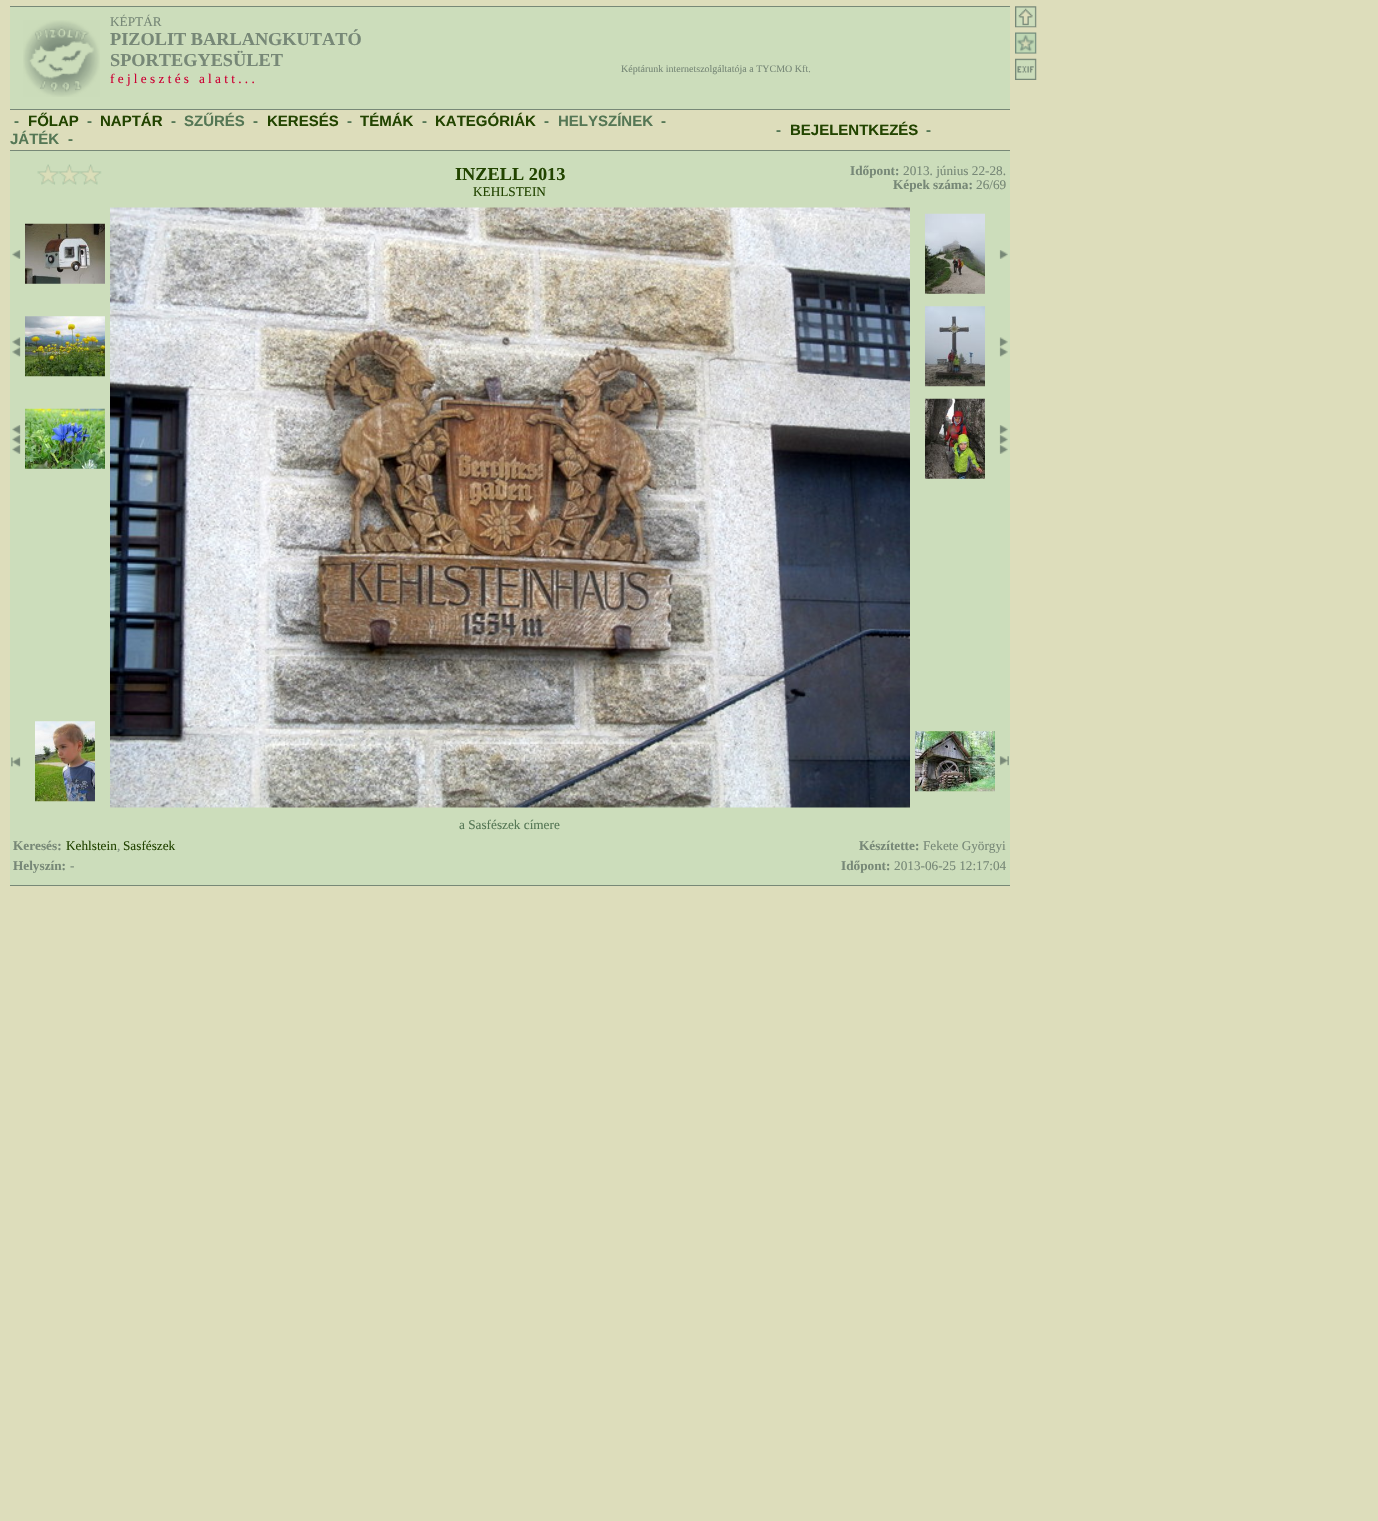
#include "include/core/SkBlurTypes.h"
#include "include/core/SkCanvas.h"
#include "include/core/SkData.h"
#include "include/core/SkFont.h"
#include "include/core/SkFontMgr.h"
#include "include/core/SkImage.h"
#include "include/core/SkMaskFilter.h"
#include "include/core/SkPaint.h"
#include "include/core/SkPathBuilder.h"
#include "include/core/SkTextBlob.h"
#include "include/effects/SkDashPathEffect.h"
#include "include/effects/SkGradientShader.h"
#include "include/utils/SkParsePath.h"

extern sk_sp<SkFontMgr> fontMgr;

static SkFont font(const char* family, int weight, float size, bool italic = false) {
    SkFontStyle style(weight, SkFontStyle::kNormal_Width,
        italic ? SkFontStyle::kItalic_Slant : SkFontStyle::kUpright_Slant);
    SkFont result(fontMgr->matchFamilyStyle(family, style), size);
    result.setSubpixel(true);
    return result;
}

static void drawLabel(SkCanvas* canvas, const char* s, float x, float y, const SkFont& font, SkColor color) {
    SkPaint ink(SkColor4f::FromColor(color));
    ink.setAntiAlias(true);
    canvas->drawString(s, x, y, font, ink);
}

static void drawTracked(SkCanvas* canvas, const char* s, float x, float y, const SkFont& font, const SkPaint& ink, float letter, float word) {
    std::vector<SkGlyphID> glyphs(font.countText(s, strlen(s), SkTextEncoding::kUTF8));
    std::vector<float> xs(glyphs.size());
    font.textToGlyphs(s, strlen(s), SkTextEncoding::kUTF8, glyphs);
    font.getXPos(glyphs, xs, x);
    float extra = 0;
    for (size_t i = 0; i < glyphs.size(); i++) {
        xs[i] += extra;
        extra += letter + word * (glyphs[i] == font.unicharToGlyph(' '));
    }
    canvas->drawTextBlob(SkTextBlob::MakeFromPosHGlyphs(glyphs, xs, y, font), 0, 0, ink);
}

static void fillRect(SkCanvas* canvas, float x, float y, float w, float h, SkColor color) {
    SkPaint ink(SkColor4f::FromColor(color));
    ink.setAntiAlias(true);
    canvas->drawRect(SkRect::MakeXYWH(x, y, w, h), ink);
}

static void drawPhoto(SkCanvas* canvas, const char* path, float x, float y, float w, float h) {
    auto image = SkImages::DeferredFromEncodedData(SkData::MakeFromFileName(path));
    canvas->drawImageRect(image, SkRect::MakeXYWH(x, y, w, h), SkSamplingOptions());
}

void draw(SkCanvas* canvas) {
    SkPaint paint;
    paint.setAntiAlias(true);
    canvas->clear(0xFFDDDDBB);
    fillRect(canvas, 10, 7, 1000, 878, 0xFFCCDDBB);
    fillRect(canvas, 10, 6, 1000, 1, 0xFF778877);
    fillRect(canvas, 10, 885, 1000, 1, 0xFF778877);
    drawPhoto(canvas, "assets/img1.png", 23, 20, 77, 77);
    SkFont font1 = font("Liberation Serif", 400, 13.25f);
    drawLabel(canvas, "KÉPTÁR", 110, 26, font1, 0xFF778877);
    SkFont font2 = font("Liberation Serif", 700, 18.3f);
    drawLabel(canvas, "PIZOLIT BARLANGKUTATÓ", 110, 45, font2, 0xFF778877);
    drawLabel(canvas, "SPORTEGYESÜLET", 110, 66, font2, 0xFF778877);
    paint.setColor(0xFFCC0033);
    drawTracked(canvas, "fejlesztés alatt...", 110, 83, font1, paint, 3.3f, 0);
    SkFont font3 = font("Liberation Serif", 400, 10);
    drawLabel(canvas, "Képtárunk internetszolgáltatója a TYCMO Kft.", 621, 72, font3, 0xFF778877);
    fillRect(canvas, 10, 110, 1000, 40, 0xFFDDDDBB);
    fillRect(canvas, 10, 109, 1000, 1, 0xFF778877);
    fillRect(canvas, 10, 150, 1000, 1, 0xFF778877);
    SkFont font4 = font("Liberation Sans", 700, 15);
    drawLabel(canvas, "-", 14, 126, font4, 0xFF557755);
    drawLabel(canvas, "FŐLAP", 28, 126, font4, 0xFF224400);
    drawLabel(canvas, "-", 87, 126, font4, 0xFF557755);
    drawLabel(canvas, "NAPTÁR", 100, 126, font4, 0xFF224400);
    drawLabel(canvas, "-", 171, 126, font4, 0xFF557755);
    drawLabel(canvas, "SZŰRÉS", 184, 126, font4, 0xFF557755);
    drawLabel(canvas, "-", 253, 126, font4, 0xFF557755);
    drawLabel(canvas, "KERESÉS", 267, 126, font4, 0xFF224400);
    drawLabel(canvas, "-", 347, 126, font4, 0xFF557755);
    drawLabel(canvas, "TÉMÁK", 360, 126, font4, 0xFF224400);
    drawLabel(canvas, "-", 422, 126, font4, 0xFF557755);
    drawLabel(canvas, "KATEGÓRIÁK", 435, 126, font4, 0xFF224400);
    drawLabel(canvas, "-", 544, 126, font4, 0xFF557755);
    drawLabel(canvas, "HELYSZÍNEK", 558, 126, font4, 0xFF557755);
    drawLabel(canvas, "-", 661, 126, font4, 0xFF557755);
    drawLabel(canvas, "JÁTÉK", 10, 144, font4, 0xFF557755);
    drawLabel(canvas, "-", 68, 144, font4, 0xFF557755);
    drawLabel(canvas, "-", 776, 135, font4, 0xFF557755);
    drawLabel(canvas, "BEJELENTKEZÉS", 790, 135, font4, 0xFF224400);
    drawLabel(canvas, "-", 926, 135, font4, 0xFF557755);
    drawPhoto(canvas, "assets/img2.png", 37, 164, 22, 21);
    drawPhoto(canvas, "assets/img3.png", 59, 164, 21, 21);
    drawPhoto(canvas, "assets/img4.png", 80, 164, 22, 21);
    drawLabel(canvas, "INZELL 2013", 455, 180, font2, 0xFF224400);
    drawLabel(canvas, "KEHLSTEIN", 473, 196, font1, 0xFF224400);
    SkFont font5 = font("Liberation Serif", 700, 13.25f);
    drawLabel(canvas, "Időpont:", 850, 175, font5, 0xFF778877);
    drawLabel(canvas, "2013. június 22-28.", 903, 175, font1, 0xFF778877);
    drawLabel(canvas, "Képek száma:", 893, 189, font5, 0xFF778877);
    drawLabel(canvas, "26/69", 976, 189, font1, 0xFF778877);
    drawPhoto(canvas, "assets/img5.png", 12, 250, 9, 9);
    drawPhoto(canvas, "assets/img6.png", 25, 223, 80, 61);
    drawPhoto(canvas, "assets/img7.png", 12, 337, 9, 20);
    drawPhoto(canvas, "assets/img8.png", 25, 316, 80, 61);
    drawPhoto(canvas, "assets/img9.png", 12, 425, 9, 29);
    drawPhoto(canvas, "assets/img10.png", 25, 408, 80, 61);
    drawPhoto(canvas, "assets/img11.png", 11, 757, 10, 10);
    drawPhoto(canvas, "assets/img12.png", 35, 721, 60, 81);
    drawPhoto(canvas, "assets/img13.png", 110, 207, 800, 601);
    drawPhoto(canvas, "assets/img14.png", 925, 213, 60, 81);
    drawPhoto(canvas, "assets/img15.png", 999, 250, 9, 9);
    drawPhoto(canvas, "assets/img16.png", 925, 306, 60, 81);
    drawPhoto(canvas, "assets/img17.png", 999, 337, 9, 20);
    drawPhoto(canvas, "assets/img18.png", 925, 398, 60, 81);
    drawPhoto(canvas, "assets/img19.png", 999, 425, 9, 29);
    drawPhoto(canvas, "assets/img20.png", 915, 731, 80, 61);
    drawPhoto(canvas, "assets/img21.png", 999, 756, 10, 10);
    drawLabel(canvas, "a Sasfészek címere", 459, 829, font1, 0xFF557755);
    drawLabel(canvas, "Keresés:", 13, 850, font5, 0xFF778877);
    drawLabel(canvas, "Kehlstein", 66, 850, font1, 0xFF224400);
    drawLabel(canvas, ",", 117, 850, font1, 0xFF778877);
    drawLabel(canvas, "Sasfészek", 123, 850, font1, 0xFF224400);
    drawLabel(canvas, "Készítette:", 859, 850, font5, 0xFF778877);
    drawLabel(canvas, "Fekete Györgyi", 923, 850, font1, 0xFF778877);
    drawLabel(canvas, "Helyszín:", 13, 870, font5, 0xFF778877);
    drawLabel(canvas, "-", 70, 870, font1, 0xFF778877);
    drawLabel(canvas, "Időpont:", 841, 870, font5, 0xFF778877);
    drawLabel(canvas, "2013-06-25 12:17:04", 894, 870, font1, 0xFF778877);
    drawPhoto(canvas, "assets/img22.png", 1015, 6, 22, 22);
    fillRect(canvas, 1015, 27, 21, 1, 0xFFC3C7AA);
    drawPhoto(canvas, "assets/img23.png", 1015, 32, 22, 22);
    fillRect(canvas, 1015, 53, 21, 1, 0xFFA1AF97);
    drawPhoto(canvas, "assets/img24.png", 1015, 58, 22, 22);
}
